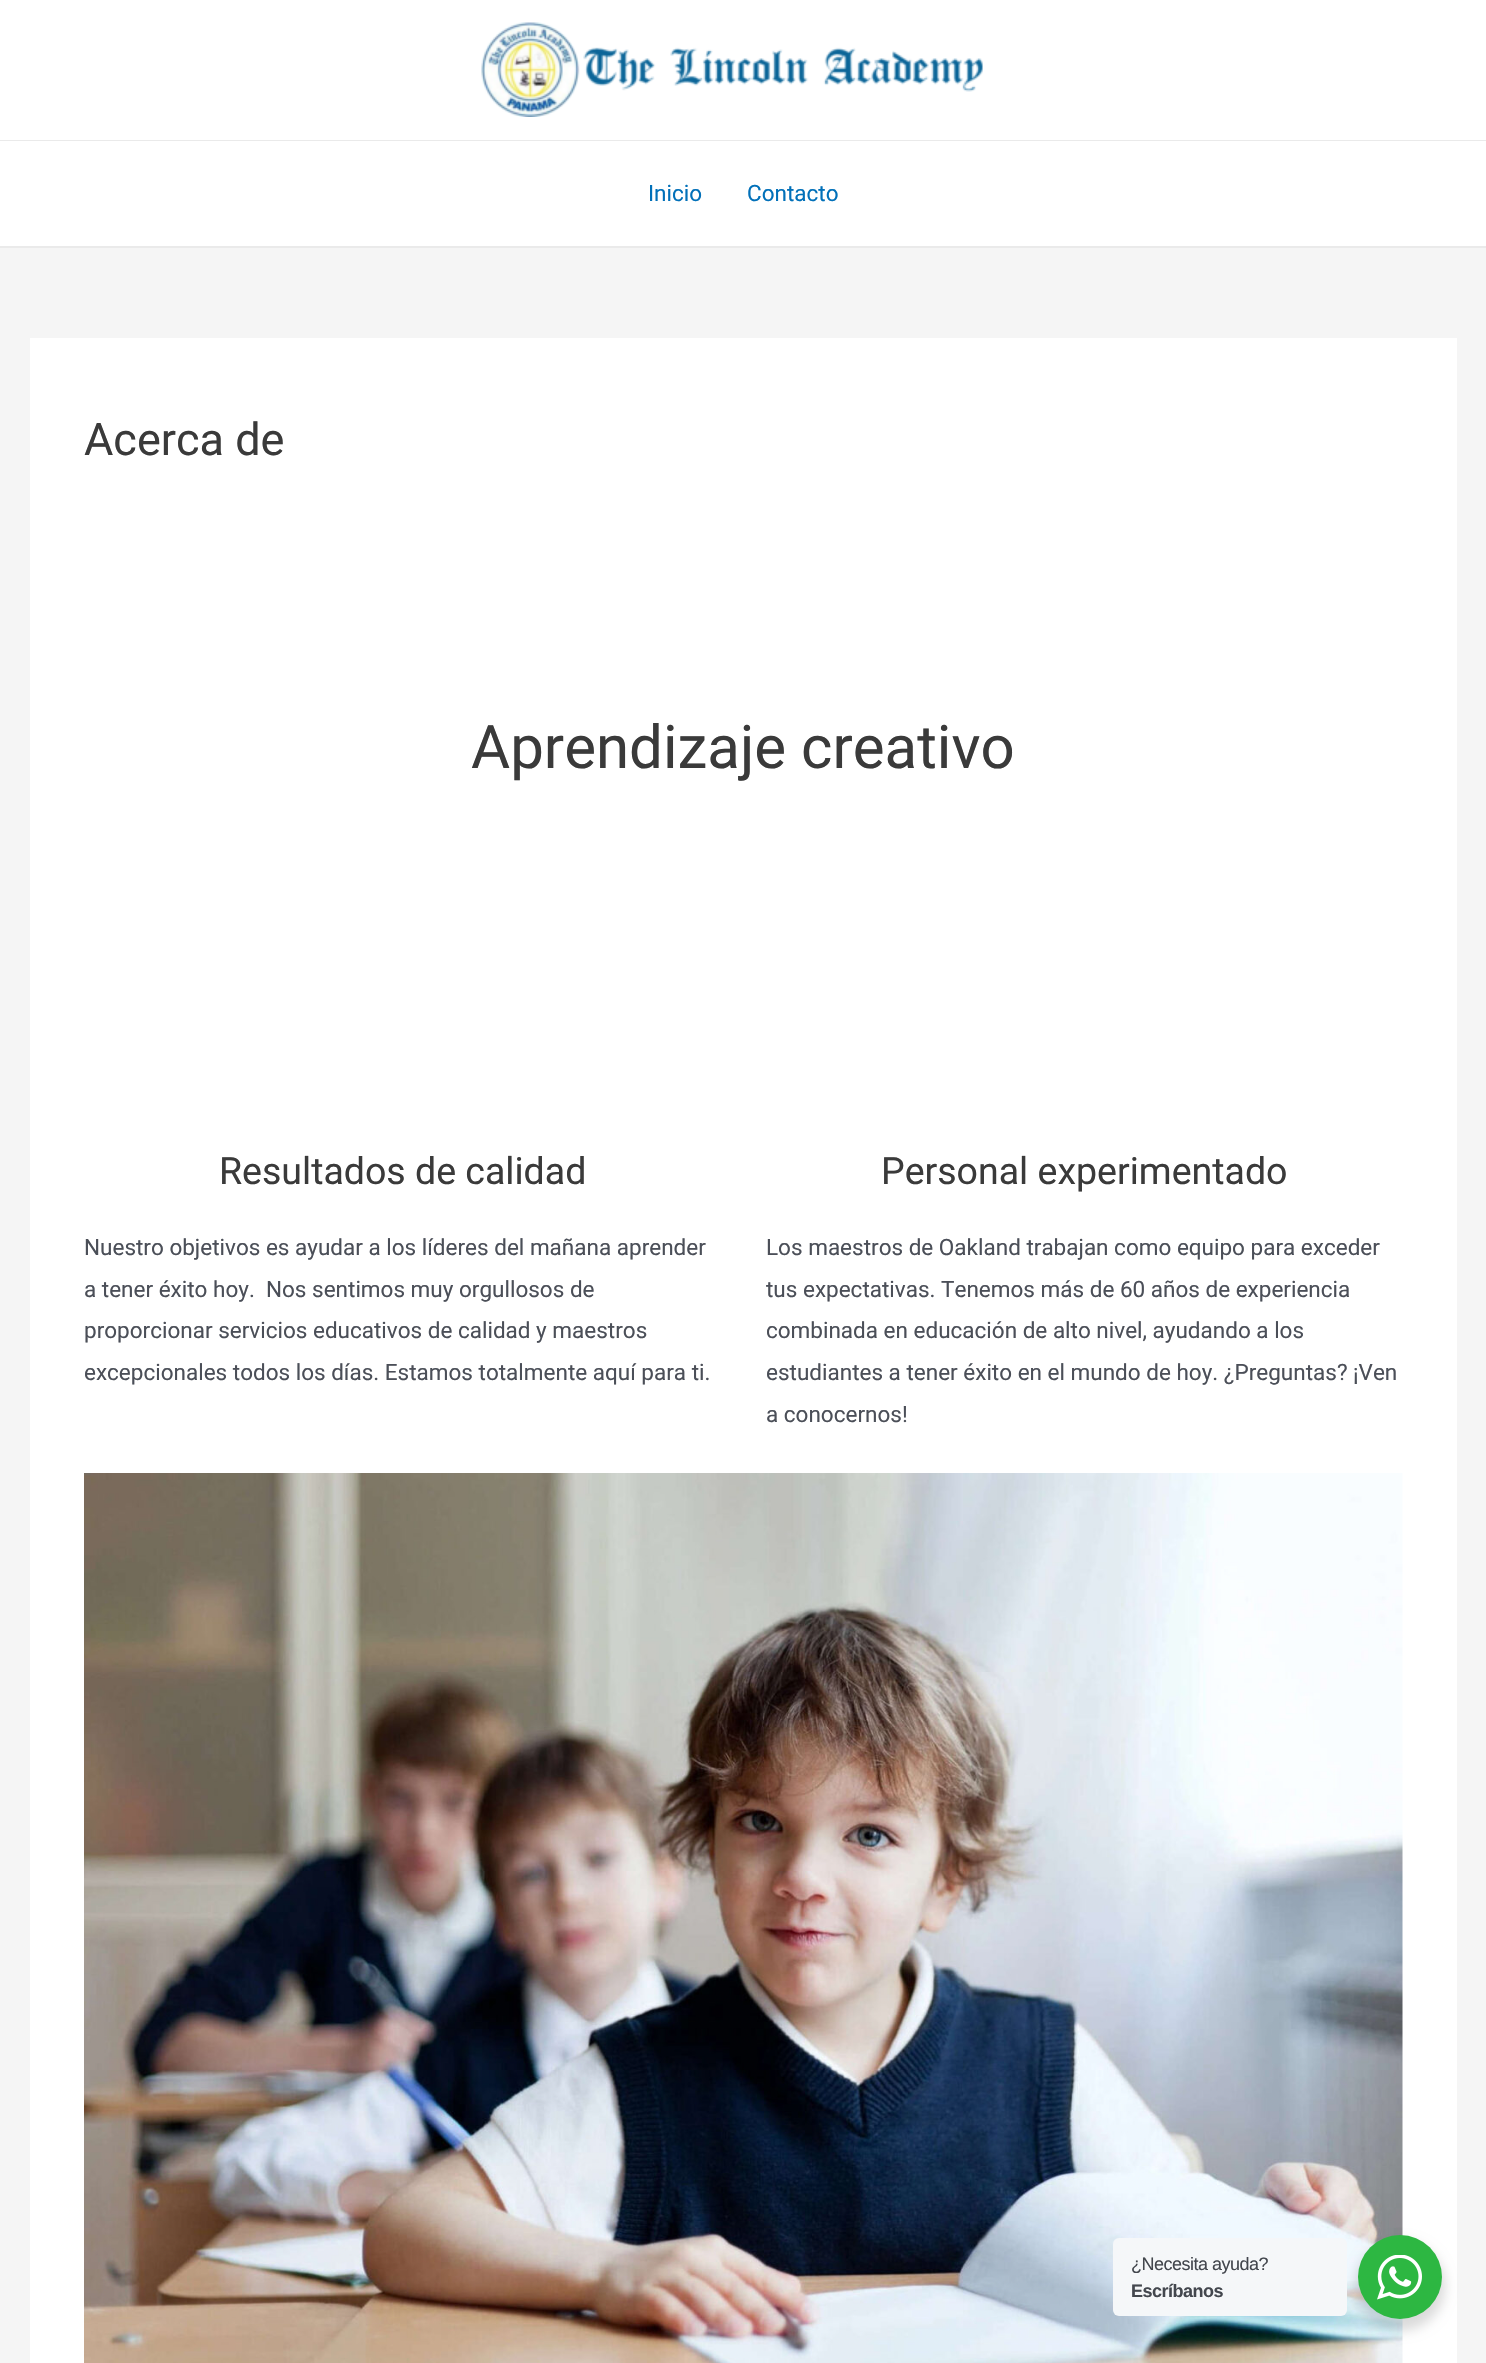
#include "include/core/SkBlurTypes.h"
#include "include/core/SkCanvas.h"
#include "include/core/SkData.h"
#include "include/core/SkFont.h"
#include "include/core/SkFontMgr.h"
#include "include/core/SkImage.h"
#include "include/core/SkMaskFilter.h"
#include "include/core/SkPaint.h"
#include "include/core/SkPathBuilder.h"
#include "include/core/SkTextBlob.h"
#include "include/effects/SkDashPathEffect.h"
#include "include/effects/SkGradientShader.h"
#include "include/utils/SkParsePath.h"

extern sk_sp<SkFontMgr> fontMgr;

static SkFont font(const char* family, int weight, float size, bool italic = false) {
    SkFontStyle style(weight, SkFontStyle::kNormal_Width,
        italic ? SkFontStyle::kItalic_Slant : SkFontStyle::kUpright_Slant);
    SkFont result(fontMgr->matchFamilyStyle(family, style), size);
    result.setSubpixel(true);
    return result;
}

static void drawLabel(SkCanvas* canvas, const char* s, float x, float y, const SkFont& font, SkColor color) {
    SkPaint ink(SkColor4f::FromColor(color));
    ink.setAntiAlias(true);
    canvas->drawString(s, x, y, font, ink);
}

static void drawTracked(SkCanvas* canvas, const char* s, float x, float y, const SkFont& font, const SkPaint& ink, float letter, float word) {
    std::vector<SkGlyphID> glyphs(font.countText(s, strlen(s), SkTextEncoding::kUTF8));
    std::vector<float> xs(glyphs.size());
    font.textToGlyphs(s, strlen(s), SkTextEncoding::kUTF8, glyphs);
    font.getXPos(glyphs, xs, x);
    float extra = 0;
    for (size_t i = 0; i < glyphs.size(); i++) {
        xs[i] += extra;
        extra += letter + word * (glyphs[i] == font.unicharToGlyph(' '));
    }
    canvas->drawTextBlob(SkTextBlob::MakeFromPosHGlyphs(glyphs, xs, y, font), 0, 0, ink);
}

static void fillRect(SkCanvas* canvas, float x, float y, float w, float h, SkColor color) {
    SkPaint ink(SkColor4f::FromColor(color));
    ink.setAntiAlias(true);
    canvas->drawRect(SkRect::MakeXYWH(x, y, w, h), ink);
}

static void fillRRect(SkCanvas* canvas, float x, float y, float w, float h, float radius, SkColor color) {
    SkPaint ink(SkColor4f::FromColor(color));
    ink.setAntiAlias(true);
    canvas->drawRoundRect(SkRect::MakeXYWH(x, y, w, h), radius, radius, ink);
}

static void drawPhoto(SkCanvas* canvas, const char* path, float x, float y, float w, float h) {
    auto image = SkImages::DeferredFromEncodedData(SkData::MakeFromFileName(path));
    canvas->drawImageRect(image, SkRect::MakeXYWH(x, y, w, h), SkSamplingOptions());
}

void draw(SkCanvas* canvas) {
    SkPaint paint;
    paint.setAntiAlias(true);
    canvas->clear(0xFFF5F5F5);
    fillRect(canvas, 0, 0, 1486, 140, 0xFFFFFFFF);
    fillRect(canvas, 0, 140, 1486, 1, 0xFFEAEAEA);
    drawPhoto(canvas, "assets/img1.png", 481, 22, 502, 95);
    fillRect(canvas, 0, 141, 1486, 105, 0xFFFFFFFF);
    fillRect(canvas, 0, 246, 1486, 2, 0xFFEAEAEA);
    SkFont font1 = font("Roboto", 400, 22.5f);
    drawLabel(canvas, "Inicio", 648, 201, font1, 0xFF0170B9);
    drawLabel(canvas, "Contacto", 747, 201, font1, 0xFF0170B9);
    fillRect(canvas, 30, 338, 1427, 2025, 0xFFFFFFFF);
    SkFont font2 = font("Roboto", 400, 45);
    drawLabel(canvas, "Acerca de", 84, 455, font2, 0xFF3A3A3A);
    SkFont font3 = font("Roboto", 400, 60);
    drawLabel(canvas, "Aprendizaje creativo", 471, 768, font3, 0xFF3A3A3A);
    SkFont font4 = font("Roboto", 400, 37.5f);
    drawLabel(canvas, "Resultados de calidad", 219, 1184, font4, 0xFF3A3A3A);
    drawLabel(canvas, "Nuestro objetivos es ayudar a los líderes del mañana aprender", 84, 1255, font1, 0xFF4B4F58);
    drawLabel(canvas, "a tener éxito hoy.  Nos sentimos muy orgullosos de", 84, 1297, font1, 0xFF4B4F58);
    drawLabel(canvas, "proporcionar servicios educativos de calidad y maestros", 84, 1338, font1, 0xFF4B4F58);
    drawLabel(canvas, "excepcionales todos los días. Estamos totalmente aquí para ti.", 84, 1380, font1, 0xFF4B4F58);
    drawLabel(canvas, "Personal experimentado", 881, 1184, font4, 0xFF3A3A3A);
    drawLabel(canvas, "Los maestros de Oakland trabajan como equipo para exceder", 766, 1255, font1, 0xFF4B4F58);
    drawLabel(canvas, "tus expectativas. Tenemos más de 60 años de experiencia", 766, 1297, font1, 0xFF4B4F58);
    drawLabel(canvas, "combinada en educación de alto nivel, ayudando a los", 766, 1338, font1, 0xFF4B4F58);
    drawLabel(canvas, "estudiantes a tener éxito en el mundo de hoy. ¿Preguntas? ¡Ven", 766, 1380, font1, 0xFF4B4F58);
    drawLabel(canvas, "a conocernos!", 766, 1422, font1, 0xFF4B4F58);
    drawPhoto(canvas, "assets/img2.png", 84, 1473, 1319, 890);
    paint.setColor(0x24000000);
    paint.setMaskFilter(SkMaskFilter::MakeBlur(kNormal_SkBlurStyle, 6));
    canvas->drawRoundRect(SkRect::MakeXYWH(1355, 2241, 90, 90), 45, 45, paint);
    paint.setMaskFilter(nullptr);
    fillRRect(canvas, 1113, 2238, 234, 78, 6, 0xFFF5F7F9);
    SkFont font5 = font("Liberation Sans", 400, 18);
    paint.setColor(0xFF43474E);
    drawTracked(canvas, "¿Necesita ayuda?", 1131, 2270, font5, paint, -0.5f, 0);
    SkFont font6 = font("Liberation Sans", 700, 18);
    drawTracked(canvas, "Escríbanos", 1131, 2297, font6, paint, -0.5f, 0);
    paint.setColor(0xFF2DB742);
    canvas->drawCircle(1400, 2277, 42, paint);
    drawPhoto(canvas, "assets/img3.png", 1377, 2255, 45, 45);
}
